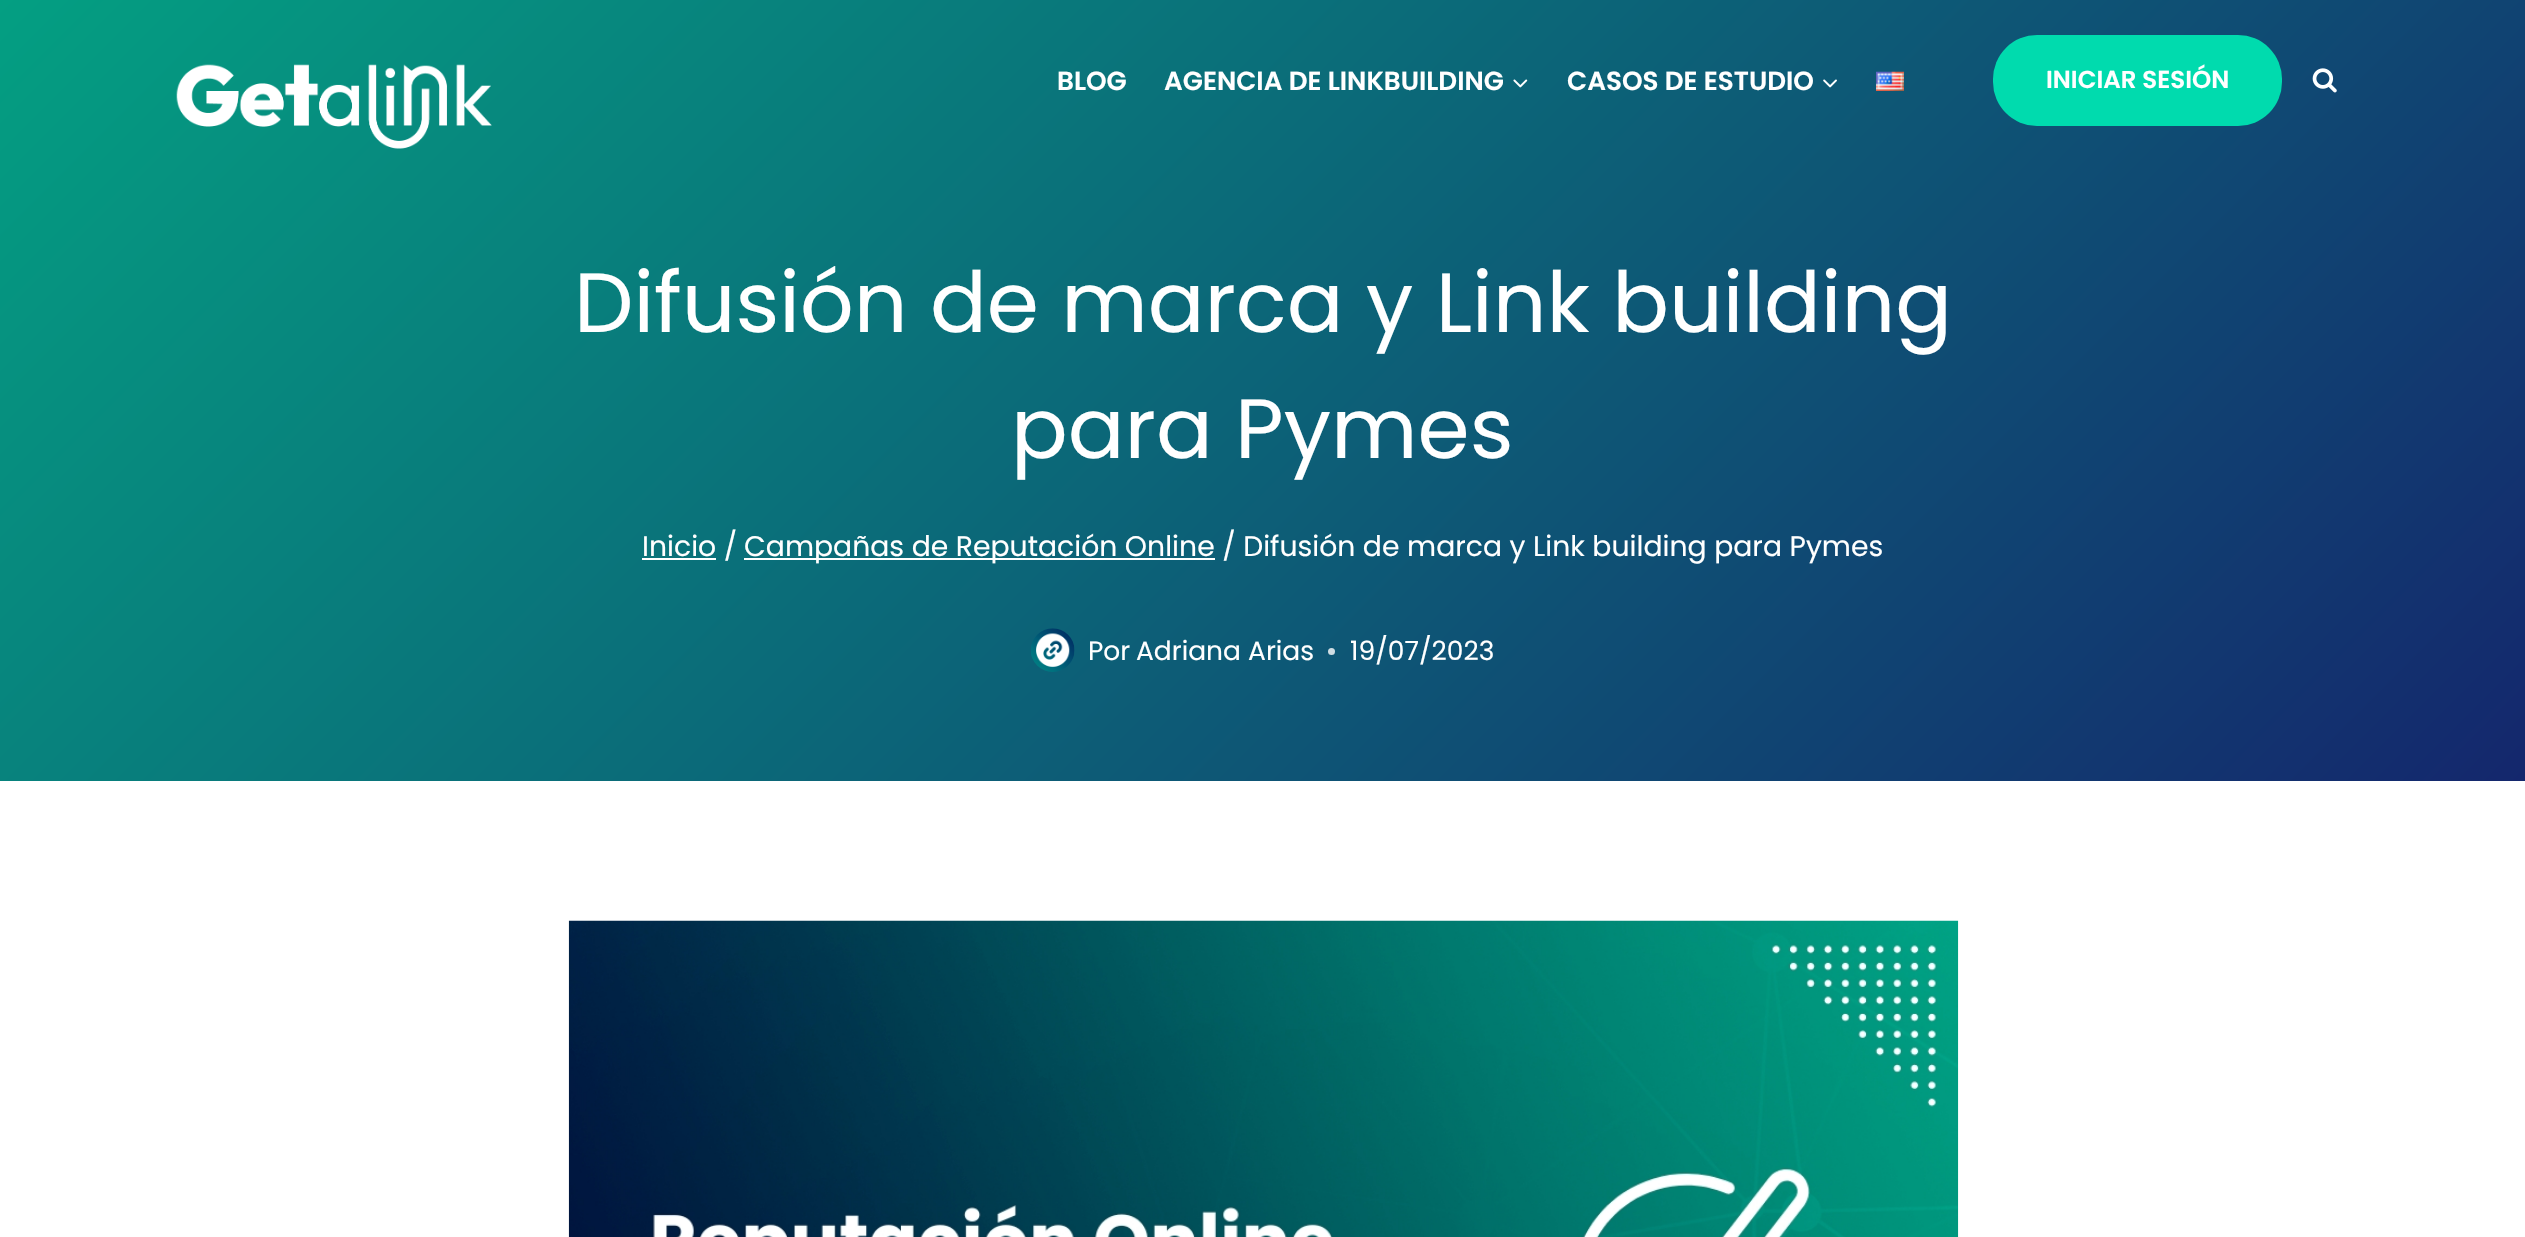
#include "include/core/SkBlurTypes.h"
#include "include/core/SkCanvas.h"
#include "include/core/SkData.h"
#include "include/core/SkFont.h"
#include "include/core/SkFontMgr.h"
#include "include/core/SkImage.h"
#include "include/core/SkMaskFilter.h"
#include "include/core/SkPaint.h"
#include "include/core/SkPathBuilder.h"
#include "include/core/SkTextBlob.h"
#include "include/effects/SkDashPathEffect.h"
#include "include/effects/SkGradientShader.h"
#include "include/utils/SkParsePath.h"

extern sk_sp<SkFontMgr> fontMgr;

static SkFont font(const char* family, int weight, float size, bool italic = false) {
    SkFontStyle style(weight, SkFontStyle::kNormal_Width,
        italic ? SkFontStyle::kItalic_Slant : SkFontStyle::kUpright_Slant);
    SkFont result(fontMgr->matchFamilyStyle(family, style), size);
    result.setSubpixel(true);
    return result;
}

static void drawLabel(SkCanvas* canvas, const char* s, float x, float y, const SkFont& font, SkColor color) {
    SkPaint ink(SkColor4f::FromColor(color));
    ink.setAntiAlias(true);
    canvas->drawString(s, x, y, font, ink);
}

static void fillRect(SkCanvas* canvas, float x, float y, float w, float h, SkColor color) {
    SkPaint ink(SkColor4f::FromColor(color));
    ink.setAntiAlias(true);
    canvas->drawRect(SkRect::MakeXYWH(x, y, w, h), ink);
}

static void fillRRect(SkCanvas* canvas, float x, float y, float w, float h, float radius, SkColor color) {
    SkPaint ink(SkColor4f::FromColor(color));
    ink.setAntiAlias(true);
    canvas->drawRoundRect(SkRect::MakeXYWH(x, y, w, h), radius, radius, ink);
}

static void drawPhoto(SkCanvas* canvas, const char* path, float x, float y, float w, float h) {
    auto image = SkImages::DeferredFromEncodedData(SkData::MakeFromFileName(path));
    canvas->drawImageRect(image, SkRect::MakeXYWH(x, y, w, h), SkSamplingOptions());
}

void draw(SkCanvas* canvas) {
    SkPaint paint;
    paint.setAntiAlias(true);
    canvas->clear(0xFFFFFFFF);
    {
        const SkColor colors[] = {0xFF049F82, 0xFF14276D};
        const float stops[] = {0, 1};
        const SkPoint ends[] = {{436, -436}, {2089, 1217}};
        paint.setShader(SkGradientShader::MakeLinear(ends, colors, stops, 2, SkTileMode::kClamp));
        paint.setAlpha(255);
    }
    canvas->drawRect(SkRect::MakeXYWH(0, 0, 2525, 781), paint);
    drawPhoto(canvas, "assets/img1.png", 176, 64, 316, 85);
    SkFont font1 = font("Poppins", 600, 26.25f);
    drawLabel(canvas, "BLOG", 1057, 90, font1, 0xFFFFFFFF);
    drawLabel(canvas, "AGENCIA DE LINKBUILDING", 1164, 90, font1, 0xFFFFFFFF);
    drawPhoto(canvas, "assets/img2.png", 1513, 79, 15, 9);
    drawLabel(canvas, "CASOS DE ESTUDIO", 1567, 90, font1, 0xFFFFFFFF);
    drawPhoto(canvas, "assets/img3.png", 1823, 79, 14, 9);
    drawPhoto(canvas, "assets/img4.png", 1876, 71, 28, 20);
    fillRRect(canvas, 1993, 35, 289, 91, 44, 0xFF00DBAE);
    SkFont font2 = font("Poppins", 600, 24.5f);
    drawLabel(canvas, "INICIAR SESIÓN", 2046, 88, font2, 0xFFFFFFFF);
    drawPhoto(canvas, "assets/img5.png", 2312, 68, 25, 25);
    SkFont font3 = font("Poppins", 400, 84);
    drawLabel(canvas, "Difusión de marca y Link building", 574, 332, font3, 0xFFFFFFFF);
    drawLabel(canvas, "para Pymes", 1011, 458, font3, 0xFFFFFFFF);
    fillRect(canvas, 642, 558, 74, 2, 0xFFFFFFFF);
    SkFont font4 = font("Poppins", 400, 28.25f);
    drawLabel(canvas, "Inicio /", 642, 556, font4, 0xFFFFFFFF);
    fillRect(canvas, 744, 558, 471, 2, 0xFFFFFFFF);
    drawLabel(canvas, "Campañas de Reputación Online / Difusión de marca y Link building para Pymes", 744, 556, font4, 0xFFFFFFFF);
    drawPhoto(canvas, "assets/img6.png", 1031, 628, 44, 44);
    SkFont font5 = font("Poppins", 400, 26.5f);
    drawLabel(canvas, "Por", 1088, 660, font5, 0xFFFFFFFF);
    drawLabel(canvas, "Adriana Arias", 1136, 660, font5, 0xFFFFFFFF);
    paint.setShader(nullptr);
    paint.setColor(0xFFCFDDE3);
    canvas->drawCircle(1331.5f, 651.5f, 3.5f, paint);
    drawLabel(canvas, "19/07/2023", 1350, 660, font5, 0xFFFFFFFF);
    drawPhoto(canvas, "assets/img7.png", 568, 920, 1391, 317);
}
